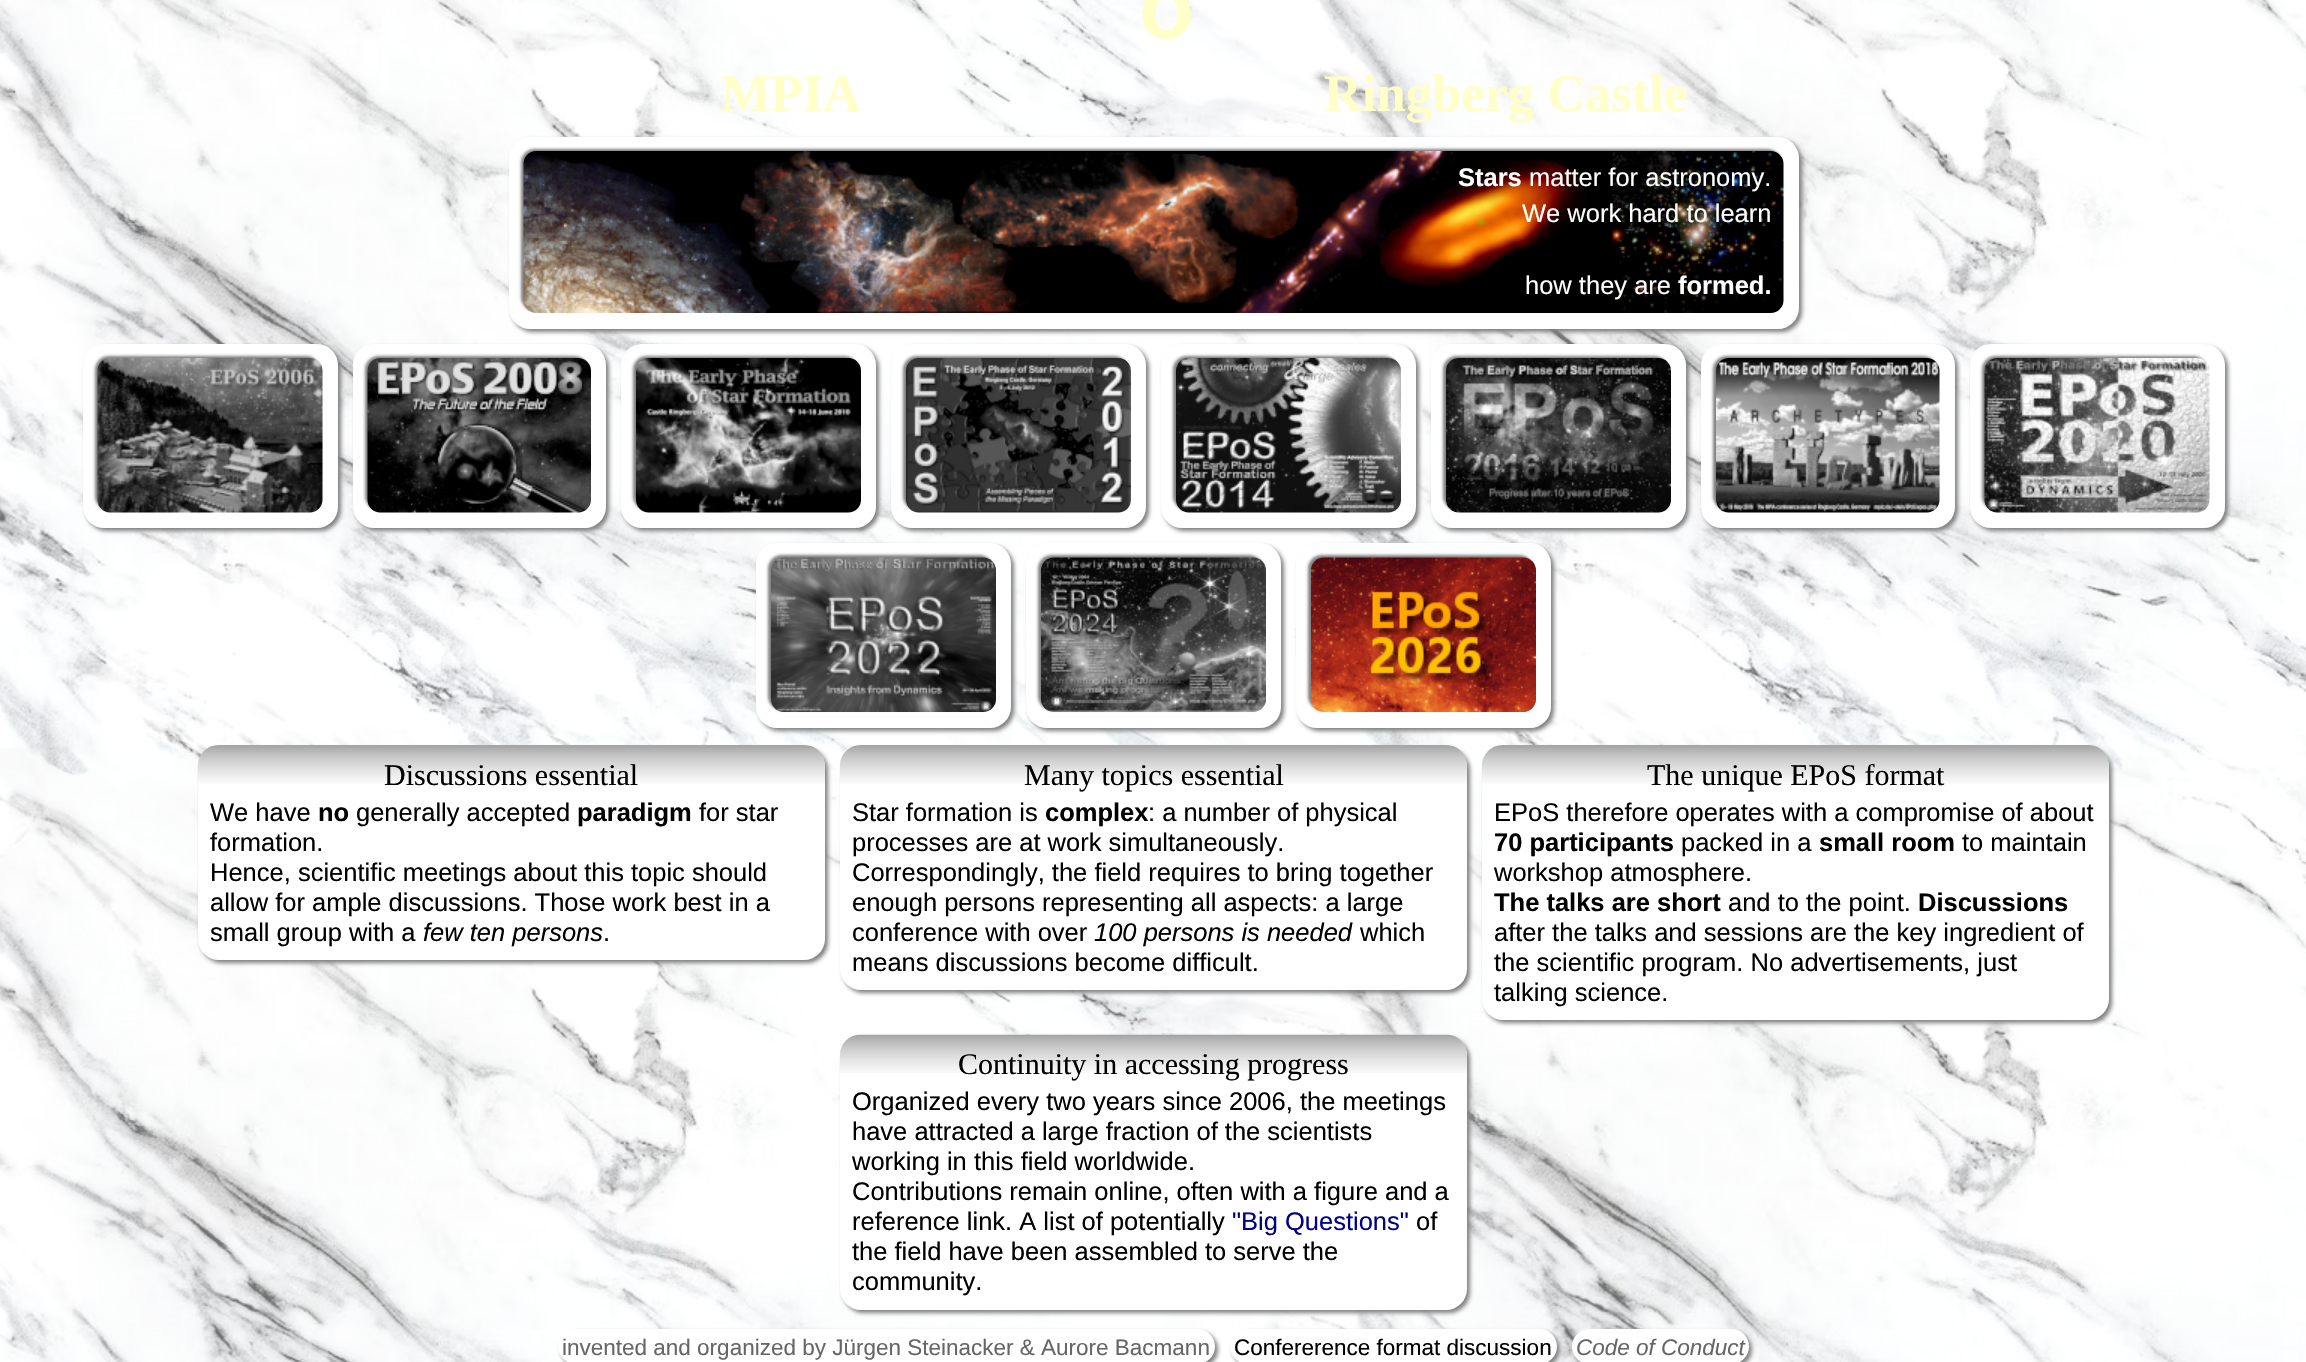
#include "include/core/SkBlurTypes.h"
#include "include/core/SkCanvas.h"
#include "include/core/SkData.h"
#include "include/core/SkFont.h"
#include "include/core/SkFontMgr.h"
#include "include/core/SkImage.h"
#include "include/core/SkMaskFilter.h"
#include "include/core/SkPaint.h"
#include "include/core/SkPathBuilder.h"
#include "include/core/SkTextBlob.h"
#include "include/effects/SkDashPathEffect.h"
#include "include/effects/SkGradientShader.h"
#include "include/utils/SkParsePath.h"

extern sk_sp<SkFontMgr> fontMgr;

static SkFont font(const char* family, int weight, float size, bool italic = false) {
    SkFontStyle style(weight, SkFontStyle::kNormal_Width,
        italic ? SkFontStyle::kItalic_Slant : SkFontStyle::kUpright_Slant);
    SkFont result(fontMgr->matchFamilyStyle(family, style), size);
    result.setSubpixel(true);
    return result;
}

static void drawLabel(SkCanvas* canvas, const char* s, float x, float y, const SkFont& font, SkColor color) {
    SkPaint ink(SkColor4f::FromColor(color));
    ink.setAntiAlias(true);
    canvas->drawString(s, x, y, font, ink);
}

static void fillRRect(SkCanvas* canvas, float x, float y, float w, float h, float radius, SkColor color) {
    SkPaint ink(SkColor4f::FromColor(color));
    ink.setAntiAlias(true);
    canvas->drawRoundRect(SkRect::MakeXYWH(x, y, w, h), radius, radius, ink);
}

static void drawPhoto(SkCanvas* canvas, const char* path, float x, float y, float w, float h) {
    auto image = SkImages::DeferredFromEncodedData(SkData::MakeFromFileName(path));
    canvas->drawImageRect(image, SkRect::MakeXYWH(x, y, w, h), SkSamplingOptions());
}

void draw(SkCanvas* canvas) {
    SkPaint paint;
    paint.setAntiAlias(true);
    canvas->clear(0xFFFFFFFF);
    drawPhoto(canvas, "assets/img1.png", 0, 0, 2306, 1362);
    SkFont font1 = font("Liberation Sans", 700, 90);
    drawLabel(canvas, "o", 1139, 38, font1, 0xFFFFFFC7);
    SkFont font2 = font("Liberation Serif", 700, 52.5f);
    drawLabel(canvas, "MPIA", 721, 111, font2, 0xFFFFFFC7);
    drawLabel(canvas, "Ringberg Castle", 1324, 111, font2, 0xFFFFFFC7);
    paint.setColor(0xFF808080);
    paint.setMaskFilter(SkMaskFilter::MakeBlur(kNormal_SkBlurStyle, 2));
    canvas->drawRoundRect(SkRect::MakeXYWH(512, 140, 1290, 192), 21, 21, paint);
    paint.setMaskFilter(nullptr);
    fillRRect(canvas, 509, 137, 1290, 192, 21, 0xFFFFFFFF);
    paint.setMaskFilter(SkMaskFilter::MakeBlur(kNormal_SkBlurStyle, 1.5f));
    canvas->drawRoundRect(SkRect::MakeXYWH(521, 149, 1260, 162), 14, 14, paint);
    paint.setMaskFilter(nullptr);
    fillRRect(canvas, 524, 152, 1260, 162, 14, 0xFFFFFFFF);
    drawPhoto(canvas, "assets/img2.png", 523, 151, 1261, 162);
    SkFont font3 = font("Liberation Sans", 700, 25.5f);
    drawLabel(canvas, "Stars", 1458, 186, font3, 0xFFFFFFFF);
    SkFont font4 = font("Liberation Sans", 400, 25.5f);
    drawLabel(canvas, "matter for astronomy.", 1529, 186, font4, 0xFFFFFFFF);
    drawLabel(canvas, "We work hard to learn", 1522, 222, font4, 0xFFFFFFFF);
    drawLabel(canvas, "how they are", 1525, 294, font4, 0xFFFFFFFF);
    drawLabel(canvas, "formed.", 1678, 294, font3, 0xFFFFFFFF);
    paint.setMaskFilter(SkMaskFilter::MakeBlur(kNormal_SkBlurStyle, 2));
    canvas->drawRoundRect(SkRect::MakeXYWH(86, 347, 255, 184), 21, 21, paint);
    paint.setMaskFilter(nullptr);
    fillRRect(canvas, 83, 344, 255, 184, 21, 0xFFFFFFFF);
    paint.setMaskFilter(SkMaskFilter::MakeBlur(kNormal_SkBlurStyle, 1.5f));
    canvas->drawRoundRect(SkRect::MakeXYWH(95, 356, 225, 154), 14, 14, paint);
    paint.setMaskFilter(nullptr);
    drawPhoto(canvas, "assets/img3.png", 97, 358, 226, 155);
    paint.setMaskFilter(SkMaskFilter::MakeBlur(kNormal_SkBlurStyle, 2));
    canvas->drawRoundRect(SkRect::MakeXYWH(356, 347, 253, 184), 21, 21, paint);
    paint.setMaskFilter(nullptr);
    fillRRect(canvas, 353, 344, 253, 184, 21, 0xFFFFFFFF);
    paint.setMaskFilter(SkMaskFilter::MakeBlur(kNormal_SkBlurStyle, 1.5f));
    canvas->drawRoundRect(SkRect::MakeXYWH(365, 356, 223, 154), 14, 14, paint);
    paint.setMaskFilter(nullptr);
    drawPhoto(canvas, "assets/img4.png", 367, 358, 224, 155);
    paint.setMaskFilter(SkMaskFilter::MakeBlur(kNormal_SkBlurStyle, 2));
    canvas->drawRoundRect(SkRect::MakeXYWH(624, 347, 255, 184), 21, 21, paint);
    paint.setMaskFilter(nullptr);
    fillRRect(canvas, 621, 344, 255, 184, 21, 0xFFFFFFFF);
    paint.setMaskFilter(SkMaskFilter::MakeBlur(kNormal_SkBlurStyle, 1.5f));
    canvas->drawRoundRect(SkRect::MakeXYWH(633, 356, 225, 154), 14, 14, paint);
    paint.setMaskFilter(nullptr);
    drawPhoto(canvas, "assets/img5.png", 636, 358, 225, 155);
    paint.setMaskFilter(SkMaskFilter::MakeBlur(kNormal_SkBlurStyle, 2));
    canvas->drawRoundRect(SkRect::MakeXYWH(894, 347, 255, 184), 21, 21, paint);
    paint.setMaskFilter(nullptr);
    fillRRect(canvas, 891, 344, 255, 184, 21, 0xFFFFFFFF);
    paint.setMaskFilter(SkMaskFilter::MakeBlur(kNormal_SkBlurStyle, 1.5f));
    canvas->drawRoundRect(SkRect::MakeXYWH(903, 356, 225, 154), 14, 14, paint);
    paint.setMaskFilter(nullptr);
    drawPhoto(canvas, "assets/img6.png", 906, 358, 225, 155);
    paint.setMaskFilter(SkMaskFilter::MakeBlur(kNormal_SkBlurStyle, 2));
    canvas->drawRoundRect(SkRect::MakeXYWH(1164, 347, 255, 184), 21, 21, paint);
    paint.setMaskFilter(nullptr);
    fillRRect(canvas, 1161, 344, 255, 184, 21, 0xFFFFFFFF);
    paint.setMaskFilter(SkMaskFilter::MakeBlur(kNormal_SkBlurStyle, 1.5f));
    canvas->drawRoundRect(SkRect::MakeXYWH(1173, 356, 225, 154), 14, 14, paint);
    paint.setMaskFilter(nullptr);
    drawPhoto(canvas, "assets/img7.png", 1176, 358, 225, 155);
    paint.setMaskFilter(SkMaskFilter::MakeBlur(kNormal_SkBlurStyle, 2));
    canvas->drawRoundRect(SkRect::MakeXYWH(1434, 347, 255, 184), 21, 21, paint);
    paint.setMaskFilter(nullptr);
    fillRRect(canvas, 1431, 344, 255, 184, 21, 0xFFFFFFFF);
    paint.setMaskFilter(SkMaskFilter::MakeBlur(kNormal_SkBlurStyle, 1.5f));
    canvas->drawRoundRect(SkRect::MakeXYWH(1443, 356, 225, 154), 14, 14, paint);
    paint.setMaskFilter(nullptr);
    drawPhoto(canvas, "assets/img8.png", 1446, 358, 225, 155);
    paint.setMaskFilter(SkMaskFilter::MakeBlur(kNormal_SkBlurStyle, 2));
    canvas->drawRoundRect(SkRect::MakeXYWH(1704, 347, 254, 184), 21, 21, paint);
    paint.setMaskFilter(nullptr);
    fillRRect(canvas, 1701, 344, 254, 184, 21, 0xFFFFFFFF);
    paint.setMaskFilter(SkMaskFilter::MakeBlur(kNormal_SkBlurStyle, 1.5f));
    canvas->drawRoundRect(SkRect::MakeXYWH(1713, 356, 224, 154), 14, 14, paint);
    paint.setMaskFilter(nullptr);
    drawPhoto(canvas, "assets/img9.png", 1716, 358, 224, 155);
    paint.setMaskFilter(SkMaskFilter::MakeBlur(kNormal_SkBlurStyle, 2));
    canvas->drawRoundRect(SkRect::MakeXYWH(1973, 347, 255, 184), 21, 21, paint);
    paint.setMaskFilter(nullptr);
    fillRRect(canvas, 1970, 344, 255, 184, 21, 0xFFFFFFFF);
    paint.setMaskFilter(SkMaskFilter::MakeBlur(kNormal_SkBlurStyle, 1.5f));
    canvas->drawRoundRect(SkRect::MakeXYWH(1982, 356, 225, 154), 14, 14, paint);
    paint.setMaskFilter(nullptr);
    drawPhoto(canvas, "assets/img10.png", 1984, 358, 226, 155);
    paint.setMaskFilter(SkMaskFilter::MakeBlur(kNormal_SkBlurStyle, 2));
    canvas->drawRoundRect(SkRect::MakeXYWH(759, 546, 255, 185), 21, 21, paint);
    paint.setMaskFilter(nullptr);
    fillRRect(canvas, 756, 543, 255, 185, 21, 0xFFFFFFFF);
    paint.setMaskFilter(SkMaskFilter::MakeBlur(kNormal_SkBlurStyle, 1.5f));
    canvas->drawRoundRect(SkRect::MakeXYWH(768, 555, 225, 155), 14, 14, paint);
    paint.setMaskFilter(nullptr);
    drawPhoto(canvas, "assets/img11.png", 771, 557, 226, 155);
    paint.setMaskFilter(SkMaskFilter::MakeBlur(kNormal_SkBlurStyle, 2));
    canvas->drawRoundRect(SkRect::MakeXYWH(1029, 546, 255, 185), 21, 21, paint);
    paint.setMaskFilter(nullptr);
    fillRRect(canvas, 1026, 543, 255, 185, 21, 0xFFFFFFFF);
    paint.setMaskFilter(SkMaskFilter::MakeBlur(kNormal_SkBlurStyle, 1.5f));
    canvas->drawRoundRect(SkRect::MakeXYWH(1038, 555, 225, 155), 14, 14, paint);
    paint.setMaskFilter(nullptr);
    drawPhoto(canvas, "assets/img12.png", 1040, 557, 227, 155);
    paint.setMaskFilter(SkMaskFilter::MakeBlur(kNormal_SkBlurStyle, 2));
    canvas->drawRoundRect(SkRect::MakeXYWH(1299, 546, 255, 185), 21, 21, paint);
    paint.setMaskFilter(nullptr);
    fillRRect(canvas, 1296, 543, 255, 185, 21, 0xFFFFFFFF);
    paint.setMaskFilter(SkMaskFilter::MakeBlur(kNormal_SkBlurStyle, 1.5f));
    canvas->drawRoundRect(SkRect::MakeXYWH(1308, 555, 225, 155), 14, 14, paint);
    paint.setMaskFilter(nullptr);
    drawPhoto(canvas, "assets/img13.png", 1311, 557, 226, 155);
    paint.setMaskFilter(SkMaskFilter::MakeBlur(kNormal_SkBlurStyle, 2));
    canvas->drawRoundRect(SkRect::MakeXYWH(201, 749, 627, 214), 21, 21, paint);
    paint.setMaskFilter(nullptr);
    fillRRect(canvas, 198, 746, 627, 214, 21, 0xFFFFFFFF);
    drawPhoto(canvas, "assets/img14.png", 198, 745, 627, 39);
    SkFont font5 = font("Liberation Serif", 400, 30);
    drawLabel(canvas, "Discussions essential", 384, 785, font5, 0xFF000000);
    drawLabel(canvas, "We have", 210, 821, font4, 0xFF000000);
    drawLabel(canvas, "no", 318, 821, font3, 0xFF000000);
    drawLabel(canvas, "generally accepted", 356, 821, font4, 0xFF000000);
    drawLabel(canvas, "paradigm", 577, 821, font3, 0xFF000000);
    drawLabel(canvas, "for star", 699, 821, font4, 0xFF000000);
    drawLabel(canvas, "formation.", 210, 851, font4, 0xFF000000);
    drawLabel(canvas, "Hence, scientific meetings about this topic should", 210, 881, font4, 0xFF000000);
    drawLabel(canvas, "allow for ample discussions. Those work best in a", 210, 911, font4, 0xFF000000);
    drawLabel(canvas, "small group with a", 210, 941, font4, 0xFF000000);
    SkFont font6 = font("Liberation Sans", 400, 25.5f, true);
    drawLabel(canvas, "few ten persons", 423, 941, font6, 0xFF000000);
    drawLabel(canvas, ".", 603, 941, font4, 0xFF000000);
    paint.setMaskFilter(SkMaskFilter::MakeBlur(kNormal_SkBlurStyle, 2));
    canvas->drawRoundRect(SkRect::MakeXYWH(843, 749, 627, 244), 21, 21, paint);
    paint.setMaskFilter(nullptr);
    fillRRect(canvas, 840, 746, 627, 244, 21, 0xFFFFFFFF);
    drawPhoto(canvas, "assets/img15.png", 840, 745, 627, 39);
    drawLabel(canvas, "Many topics essential", 1024, 785, font5, 0xFF000000);
    drawLabel(canvas, "Star formation is", 852, 821, font4, 0xFF000000);
    drawLabel(canvas, "complex", 1045, 821, font3, 0xFF000000);
    drawLabel(canvas, ": a number of physical", 1148, 821, font4, 0xFF000000);
    drawLabel(canvas, "processes are at work simultaneously.", 852, 851, font4, 0xFF000000);
    drawLabel(canvas, "Correspondingly, the field requires to bring together", 852, 881, font4, 0xFF000000);
    drawLabel(canvas, "enough persons representing all aspects: a large", 852, 911, font4, 0xFF000000);
    drawLabel(canvas, "conference with over", 852, 941, font4, 0xFF000000);
    drawLabel(canvas, "100 persons is needed", 1094, 941, font6, 0xFF000000);
    drawLabel(canvas, "which", 1360, 941, font4, 0xFF000000);
    drawLabel(canvas, "means discussions become difficult.", 852, 971, font4, 0xFF000000);
    paint.setMaskFilter(SkMaskFilter::MakeBlur(kNormal_SkBlurStyle, 2));
    canvas->drawRoundRect(SkRect::MakeXYWH(1485, 749, 627, 274), 21, 21, paint);
    paint.setMaskFilter(nullptr);
    fillRRect(canvas, 1482, 746, 627, 274, 21, 0xFFFFFFFF);
    drawPhoto(canvas, "assets/img16.png", 1482, 745, 627, 39);
    drawLabel(canvas, "The unique EPoS format", 1647, 785, font5, 0xFF000000);
    drawLabel(canvas, "EPoS therefore operates with a compromise of about", 1494, 821, font4, 0xFF000000);
    drawLabel(canvas, "70 participants", 1494, 851, font3, 0xFF000000);
    drawLabel(canvas, "packed in a", 1681, 851, font4, 0xFF000000);
    drawLabel(canvas, "small room", 1819, 851, font3, 0xFF000000);
    drawLabel(canvas, "to maintain", 1962, 851, font4, 0xFF000000);
    drawLabel(canvas, "workshop atmosphere.", 1494, 881, font4, 0xFF000000);
    drawLabel(canvas, "The talks are short", 1494, 911, font3, 0xFF000000);
    drawLabel(canvas, "and to the point.", 1728, 911, font4, 0xFF000000);
    drawLabel(canvas, "Discussions", 1918, 911, font3, 0xFF000000);
    drawLabel(canvas, "after the talks and sessions are the key ingredient of", 1494, 941, font4, 0xFF000000);
    drawLabel(canvas, "the scientific program. No advertisements, just", 1494, 971, font4, 0xFF000000);
    drawLabel(canvas, "talking science.", 1494, 1001, font4, 0xFF000000);
    paint.setMaskFilter(SkMaskFilter::MakeBlur(kNormal_SkBlurStyle, 2));
    canvas->drawRoundRect(SkRect::MakeXYWH(843, 1038, 627, 275), 21, 21, paint);
    paint.setMaskFilter(nullptr);
    fillRRect(canvas, 840, 1035, 627, 275, 21, 0xFFFFFFFF);
    drawPhoto(canvas, "assets/img17.png", 840, 1034, 627, 39);
    drawLabel(canvas, "Continuity in accessing progress", 958, 1074, font5, 0xFF000000);
    drawLabel(canvas, "Organized every two years since 2006, the meetings", 852, 1110, font4, 0xFF000000);
    drawLabel(canvas, "have attracted a large fraction of the scientists", 852, 1140, font4, 0xFF000000);
    drawLabel(canvas, "working in this field worldwide.", 852, 1170, font4, 0xFF000000);
    drawLabel(canvas, "Contributions remain online, often with a figure and a", 852, 1200, font4, 0xFF000000);
    drawLabel(canvas, "reference link. A list of potentially", 852, 1230, font4, 0xFF000000);
    drawLabel(canvas, "\"Big Questions\"", 1232, 1230, font4, 0xFF000088);
    drawLabel(canvas, "of", 1416, 1230, font4, 0xFF000000);
    drawLabel(canvas, "the field have been assembled to serve the", 852, 1260, font4, 0xFF000000);
    drawLabel(canvas, "community.", 852, 1290, font4, 0xFF000000);
    paint.setMaskFilter(SkMaskFilter::MakeBlur(kNormal_SkBlurStyle, 2));
    canvas->drawRoundRect(SkRect::MakeXYWH(561, 1332, 657, 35), 17.5f, 17.5f, paint);
    paint.setMaskFilter(nullptr);
    fillRRect(canvas, 558, 1329, 657, 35, 17.5f, 0xFFFFFFFF);
    SkFont font7 = font("Liberation Sans", 400, 22.5f);
    drawLabel(canvas, "invented and organized by Jürgen Steinacker & Aurore Bacmann", 562, 1355, font7, 0xFF666666);
    paint.setMaskFilter(SkMaskFilter::MakeBlur(kNormal_SkBlurStyle, 2));
    canvas->drawRoundRect(SkRect::MakeXYWH(1233, 1332, 327, 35), 17.5f, 17.5f, paint);
    paint.setMaskFilter(nullptr);
    fillRRect(canvas, 1230, 1329, 327, 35, 17.5f, 0xFFFFFFFF);
    drawLabel(canvas, "Confererence format discussion", 1234, 1355, font7, 0xFF000000);
    paint.setMaskFilter(SkMaskFilter::MakeBlur(kNormal_SkBlurStyle, 2));
    canvas->drawRoundRect(SkRect::MakeXYWH(1575, 1332, 177, 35), 17.5f, 17.5f, paint);
    paint.setMaskFilter(nullptr);
    fillRRect(canvas, 1572, 1329, 177, 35, 17.5f, 0xFFFFFFFF);
    SkFont font8 = font("Liberation Sans", 400, 22.5f, true);
    drawLabel(canvas, "Code of Conduct", 1576, 1355, font8, 0xFF666666);
}
